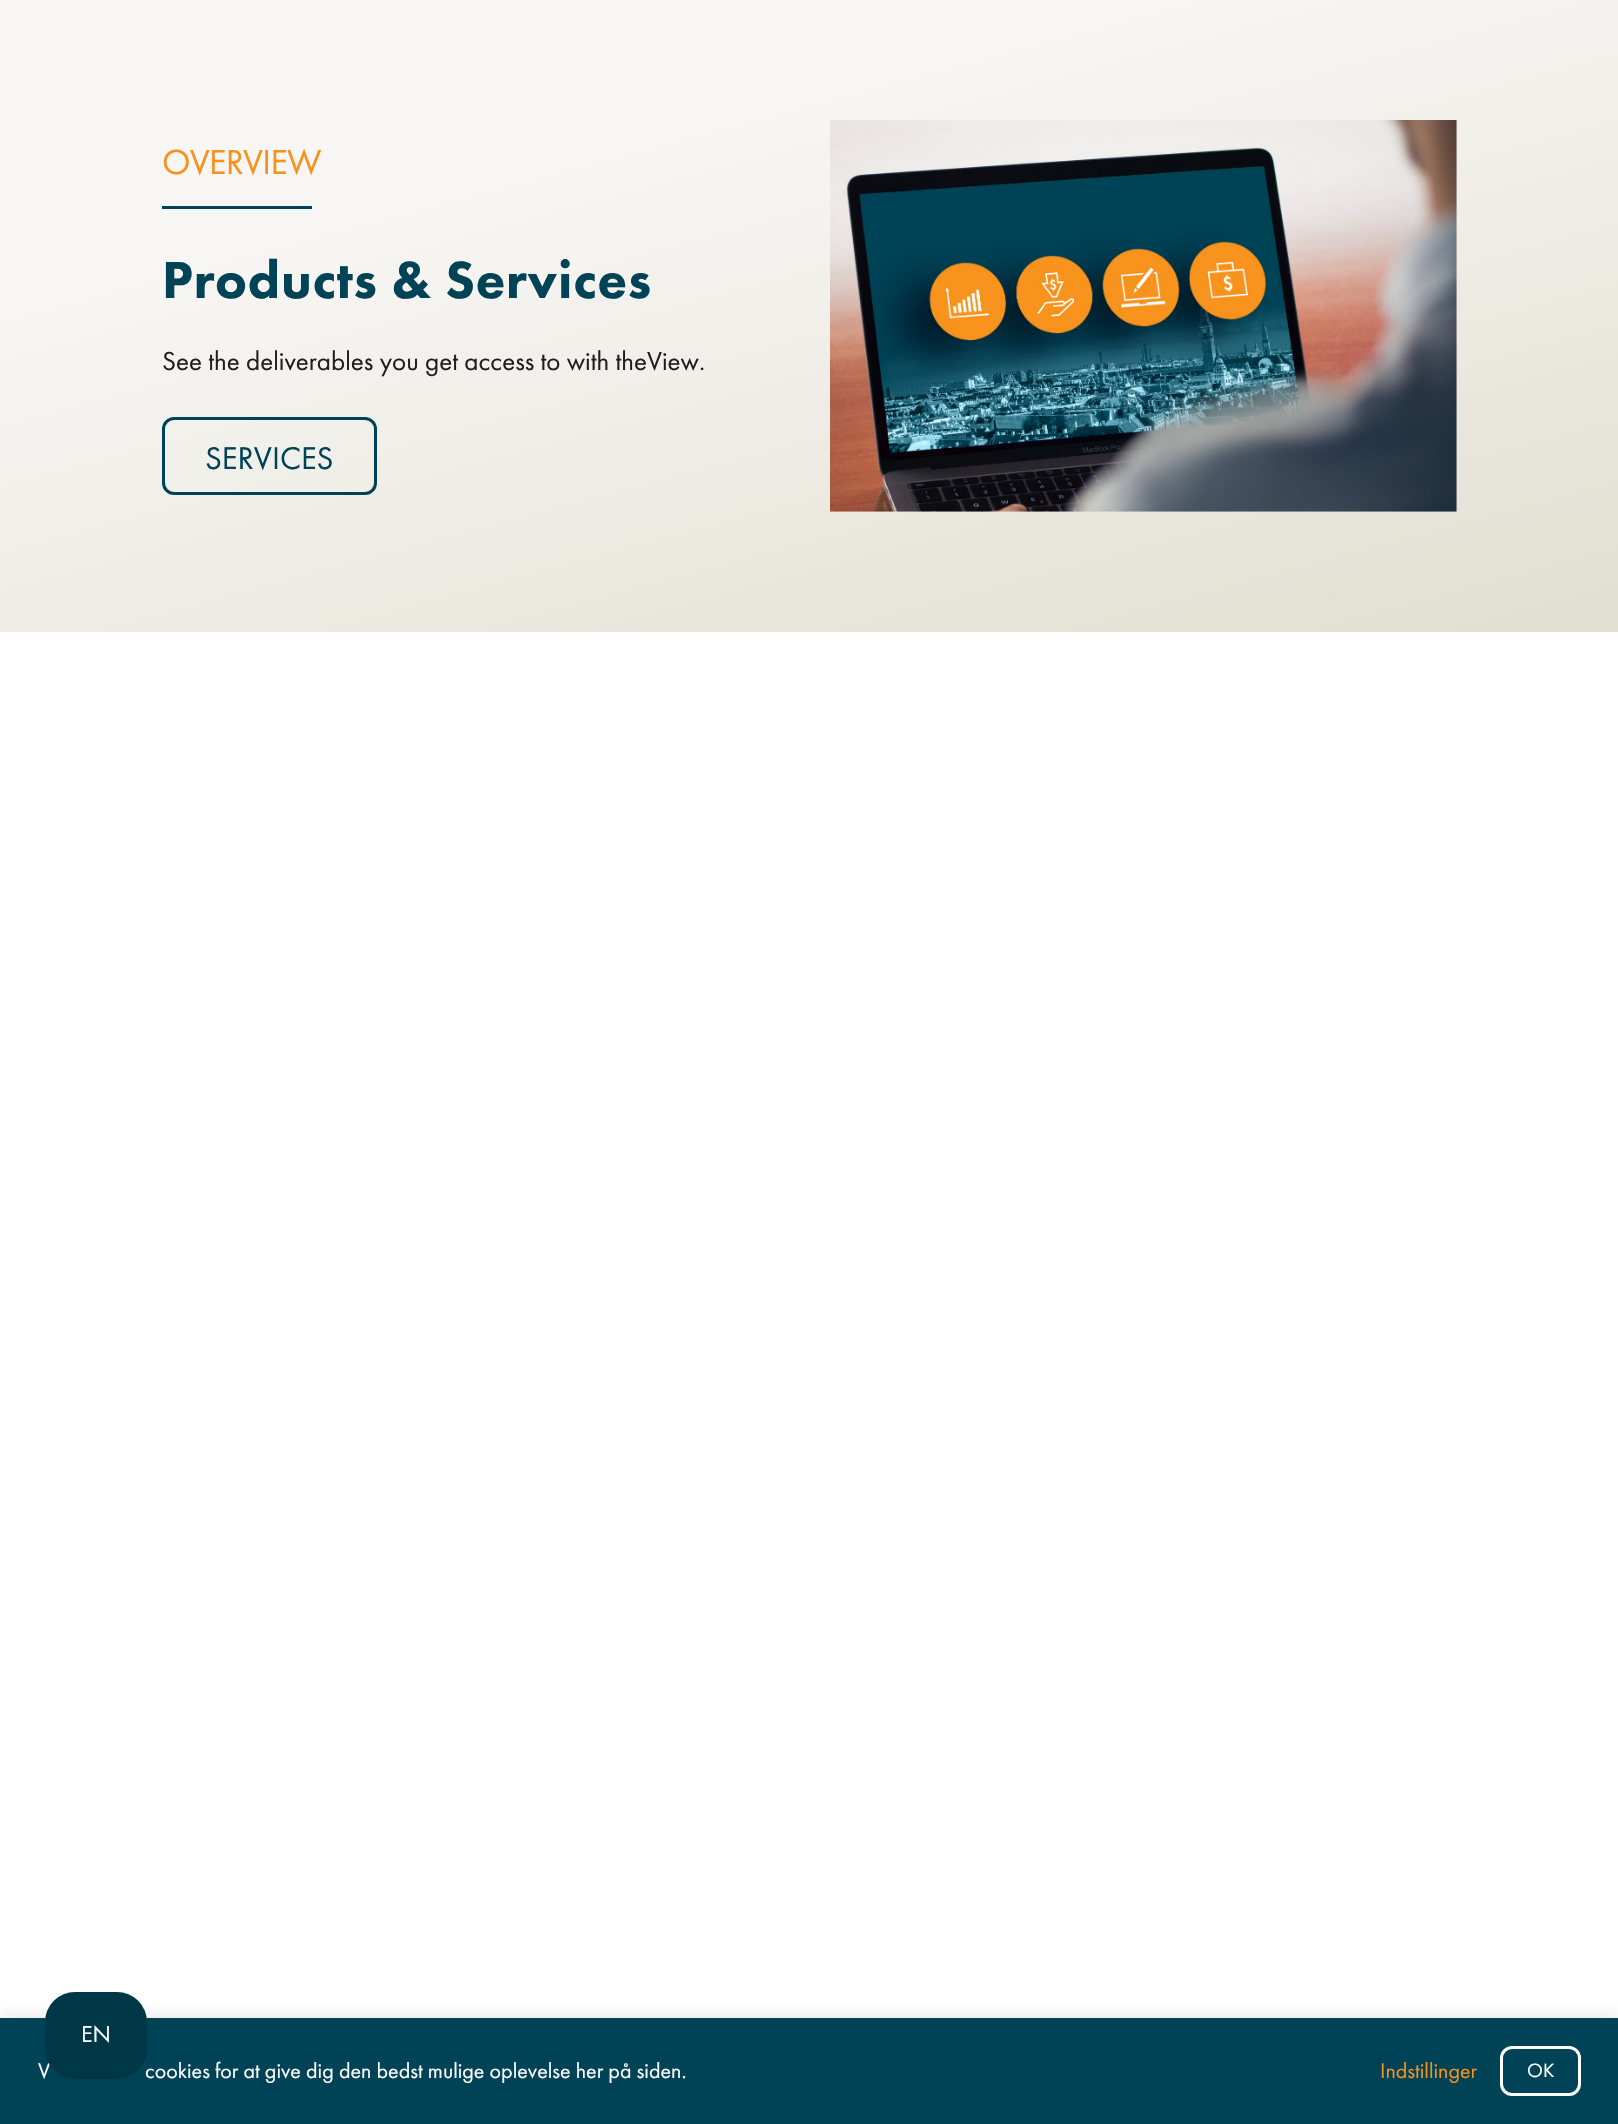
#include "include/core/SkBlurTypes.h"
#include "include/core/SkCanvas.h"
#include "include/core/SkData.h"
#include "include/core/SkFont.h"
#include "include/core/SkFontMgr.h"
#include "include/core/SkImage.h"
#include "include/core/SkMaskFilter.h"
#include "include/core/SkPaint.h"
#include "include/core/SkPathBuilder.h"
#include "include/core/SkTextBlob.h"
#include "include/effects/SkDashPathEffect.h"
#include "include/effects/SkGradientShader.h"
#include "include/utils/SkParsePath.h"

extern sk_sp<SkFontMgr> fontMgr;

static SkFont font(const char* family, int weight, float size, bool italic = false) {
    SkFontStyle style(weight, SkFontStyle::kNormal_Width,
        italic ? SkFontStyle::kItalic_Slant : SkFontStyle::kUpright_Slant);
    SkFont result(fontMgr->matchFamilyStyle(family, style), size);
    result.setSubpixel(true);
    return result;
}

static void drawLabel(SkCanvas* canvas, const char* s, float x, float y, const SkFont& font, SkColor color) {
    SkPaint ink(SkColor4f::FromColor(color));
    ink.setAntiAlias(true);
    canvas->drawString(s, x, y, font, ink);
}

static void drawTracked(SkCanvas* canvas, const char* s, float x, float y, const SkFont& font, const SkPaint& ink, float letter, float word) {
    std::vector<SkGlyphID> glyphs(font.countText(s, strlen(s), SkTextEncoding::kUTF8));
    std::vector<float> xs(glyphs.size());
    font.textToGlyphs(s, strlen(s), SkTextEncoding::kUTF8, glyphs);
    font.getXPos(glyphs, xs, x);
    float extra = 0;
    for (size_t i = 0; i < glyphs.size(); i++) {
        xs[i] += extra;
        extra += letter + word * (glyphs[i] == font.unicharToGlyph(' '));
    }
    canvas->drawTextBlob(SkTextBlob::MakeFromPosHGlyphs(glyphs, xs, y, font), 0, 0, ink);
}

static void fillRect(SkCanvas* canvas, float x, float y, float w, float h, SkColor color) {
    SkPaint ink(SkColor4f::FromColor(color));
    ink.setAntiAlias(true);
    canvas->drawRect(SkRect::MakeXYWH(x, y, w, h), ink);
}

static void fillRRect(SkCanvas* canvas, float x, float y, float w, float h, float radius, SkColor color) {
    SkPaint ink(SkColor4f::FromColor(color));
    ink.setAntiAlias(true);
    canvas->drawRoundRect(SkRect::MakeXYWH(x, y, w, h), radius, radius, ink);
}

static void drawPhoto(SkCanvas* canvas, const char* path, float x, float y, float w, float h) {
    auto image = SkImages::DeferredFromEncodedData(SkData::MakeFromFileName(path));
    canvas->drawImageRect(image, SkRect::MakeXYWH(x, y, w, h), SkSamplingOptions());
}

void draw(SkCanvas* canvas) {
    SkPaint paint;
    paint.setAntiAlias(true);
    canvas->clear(0xFFFFFFFF);
    {
        const SkColor colors[] = {0xFFF8F6F4, 0xFFE1DFD0};
        const float stops[] = {0.29f, 1};
        const SkPoint ends[] = {{676, -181}, {942, 813}};
        paint.setShader(SkGradientShader::MakeLinear(ends, colors, stops, 2, SkTileMode::kClamp));
        paint.setAlpha(255);
    }
    canvas->drawRect(SkRect::MakeXYWH(0, 0, 1618, 632), paint);
    SkFont font1 = font("Futura PT", 400, 36);
    paint.setShader(nullptr);
    paint.setColor(0xFFF7931D);
    drawTracked(canvas, "OVERVIEW", 162, 174, font1, paint, -0.75f, 0);
    fillRect(canvas, 162, 206, 150, 3, 0xFF004256);
    SkFont font2 = font("Futura PT", 900, 54);
    paint.setColor(0xFF004256);
    drawTracked(canvas, "Products & Services", 162, 298, font2, paint, 0.75f, 0);
    SkFont font3 = font("Futura PT", 400, 27);
    drawLabel(canvas, "See the deliverables you get access to with theView.", 162, 370, font3, 0xFF1F1F1F);
    paint.setStroke(true);
    paint.setStrokeWidth(3);
    canvas->drawRoundRect(SkRect::MakeXYWH(163.5f, 418.5f, 212, 75), 10.5f, 10.5f, paint);
    SkFont font4 = font("Futura PT", 400, 32.5f);
    drawLabel(canvas, "SERVICES", 205, 469, font4, 0xFF004256);
    drawPhoto(canvas, "assets/img1.png", 830, 120, 627, 392);
    paint.setStroke(false);
    paint.setColor(0x4DACABAB);
    paint.setMaskFilter(SkMaskFilter::MakeBlur(kNormal_SkBlurStyle, 7.5f));
    canvas->drawRect(SkRect::MakeXYWH(0, 2016, 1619, 107), paint);
    paint.setMaskFilter(nullptr);
    fillRect(canvas, 0, 2018, 1618, 106, 0xFF004256);
    SkFont font5 = font("Futura PT", 400, 22);
    drawLabel(canvas, "V", 38, 2078, font5, 0xFFFFFFFF);
    drawLabel(canvas, "cookies for at give dig den bedst mulige oplevelse her på siden.", 145, 2078, font5, 0xFFFFFFFF);
    fillRRect(canvas, 45, 1992, 102, 87, 30, 0xFF003746);
    SkFont font6 = font("Futura PT", 400, 24);
    drawLabel(canvas, "EN", 81, 2042, font6, 0xFFFFFFFF);
    drawLabel(canvas, "Indstillinger", 1380, 2078, font5, 0xFFF7931D);
    paint.setStroke(true);
    paint.setColor(0xFFFFFFFF);
    canvas->drawRoundRect(SkRect::MakeXYWH(1501.5f, 2047.5f, 78, 47), 10.5f, 10.5f, paint);
    SkFont font7 = font("Futura PT", 400, 20);
    drawLabel(canvas, "OK", 1527, 2077, font7, 0xFFFFFFFF);
}
